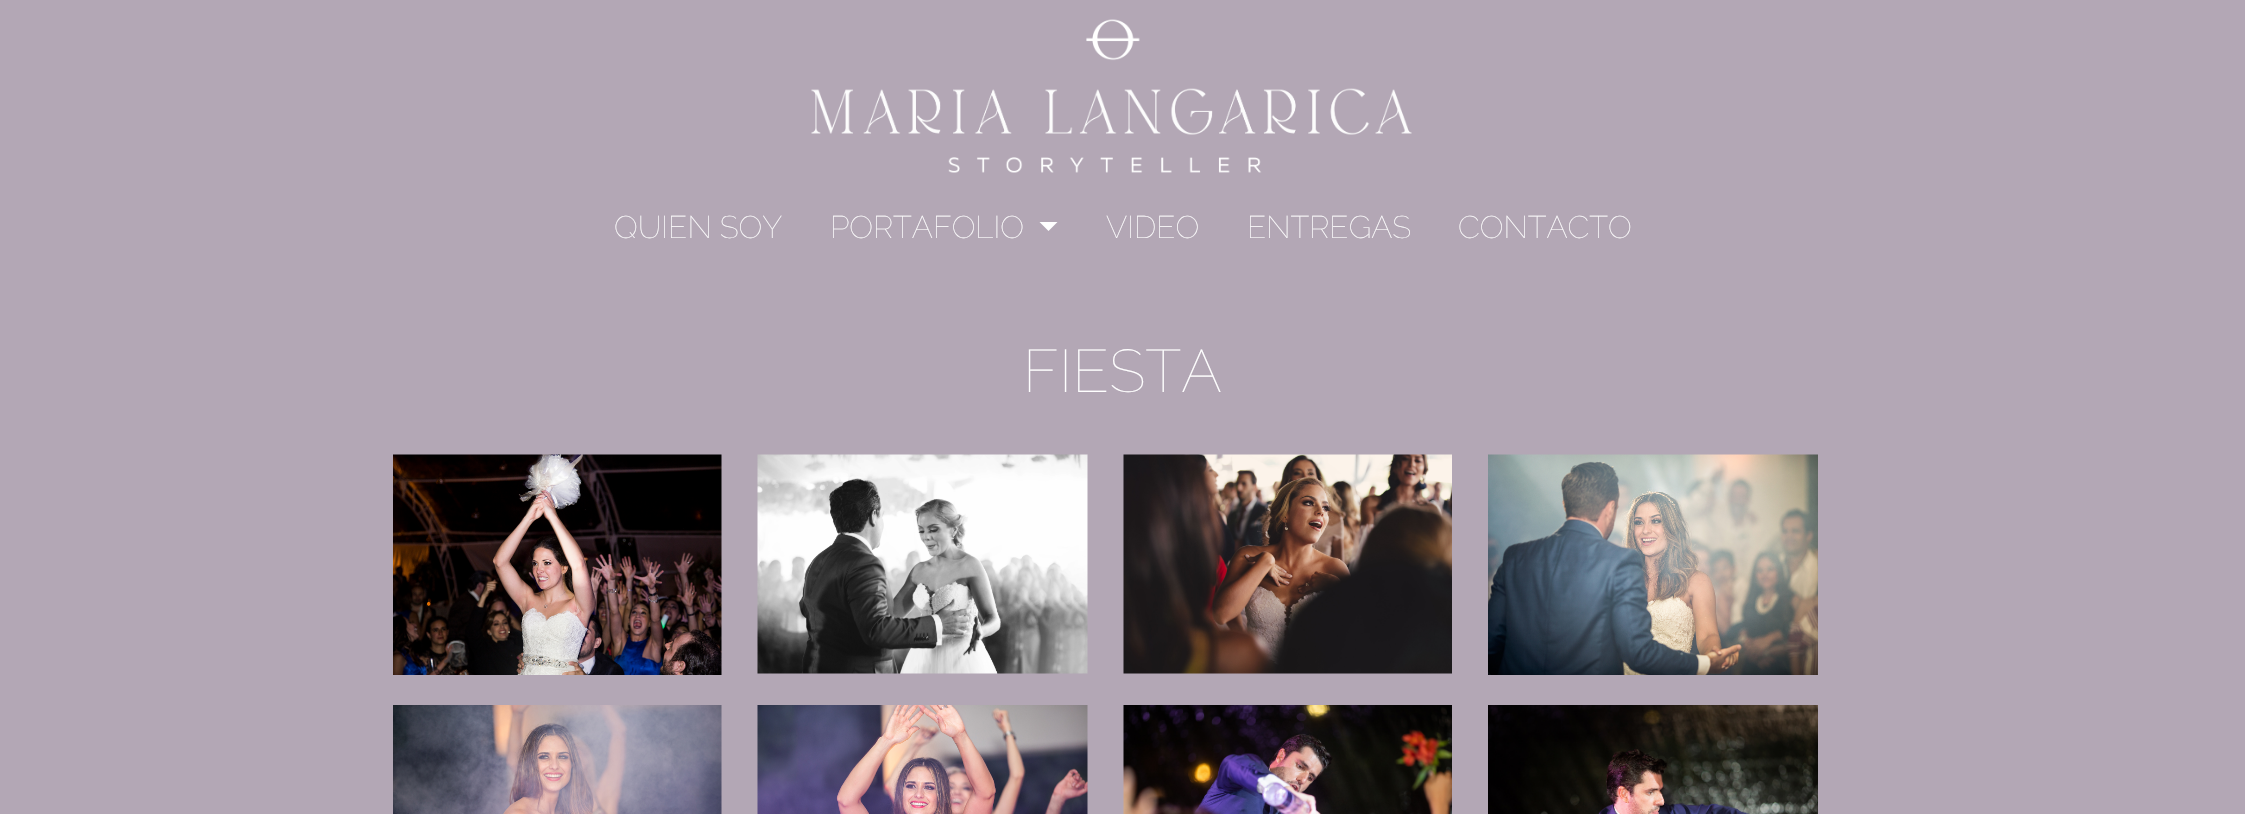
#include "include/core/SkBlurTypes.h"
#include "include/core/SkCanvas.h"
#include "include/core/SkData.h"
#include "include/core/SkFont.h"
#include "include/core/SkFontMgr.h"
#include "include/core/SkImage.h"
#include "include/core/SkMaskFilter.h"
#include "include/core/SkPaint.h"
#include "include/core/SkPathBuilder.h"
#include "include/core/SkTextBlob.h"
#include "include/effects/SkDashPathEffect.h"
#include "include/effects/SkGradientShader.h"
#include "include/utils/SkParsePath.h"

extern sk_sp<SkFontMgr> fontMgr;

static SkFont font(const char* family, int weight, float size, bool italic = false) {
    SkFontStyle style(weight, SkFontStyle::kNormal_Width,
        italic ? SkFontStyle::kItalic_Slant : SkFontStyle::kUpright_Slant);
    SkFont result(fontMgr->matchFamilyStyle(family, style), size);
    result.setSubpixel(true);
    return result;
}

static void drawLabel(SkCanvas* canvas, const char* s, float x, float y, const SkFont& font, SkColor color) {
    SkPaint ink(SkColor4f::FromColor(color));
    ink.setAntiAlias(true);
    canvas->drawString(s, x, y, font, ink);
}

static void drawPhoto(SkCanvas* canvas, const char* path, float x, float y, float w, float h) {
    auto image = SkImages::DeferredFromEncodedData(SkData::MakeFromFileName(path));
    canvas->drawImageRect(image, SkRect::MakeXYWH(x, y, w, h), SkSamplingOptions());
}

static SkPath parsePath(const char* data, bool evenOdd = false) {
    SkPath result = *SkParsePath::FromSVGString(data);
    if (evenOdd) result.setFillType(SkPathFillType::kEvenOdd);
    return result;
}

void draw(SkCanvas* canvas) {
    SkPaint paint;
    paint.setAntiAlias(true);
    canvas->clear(0xFFB3A7B5);
    drawPhoto(canvas, "assets/img1.png", 811, 19, 601, 154);
    SkFont font1 = font("Raleway", 100, 31.25f);
    drawLabel(canvas, "QUIEN SOY", 614, 238, font1, 0xFFFFFFFF);
    drawLabel(canvas, "PORTAFOLIO", 830, 238, font1, 0xFFFFFFFF);
    paint.setColor(0xFFFFFFFF);
    canvas->drawPath(parsePath("M1039.5 222H1057.5L1048.5 231Z"), paint);
    drawLabel(canvas, "VIDEO", 1106, 238, font1, 0xFFFFFFFF);
    drawLabel(canvas, "ENTREGAS", 1247, 238, font1, 0xFFFFFFFF);
    drawLabel(canvas, "CONTACTO", 1458, 238, font1, 0xFFFFFFFF);
    SkFont font2 = font("Raleway", 100, 60);
    drawLabel(canvas, "FIESTA", 1023, 392, font2, 0xFFFFFFFF);
    drawPhoto(canvas, "assets/img2.png", 393, 454, 329, 221);
    drawPhoto(canvas, "assets/img3.png", 757, 454, 331, 220);
    drawPhoto(canvas, "assets/img4.png", 1123, 454, 329, 220);
    drawPhoto(canvas, "assets/img5.png", 1488, 454, 330, 221);
    drawPhoto(canvas, "assets/img6.png", 393, 705, 329, 109);
    drawPhoto(canvas, "assets/img7.png", 757, 705, 331, 109);
    drawPhoto(canvas, "assets/img8.png", 1123, 705, 329, 109);
    drawPhoto(canvas, "assets/img9.png", 1488, 705, 330, 109);
}
